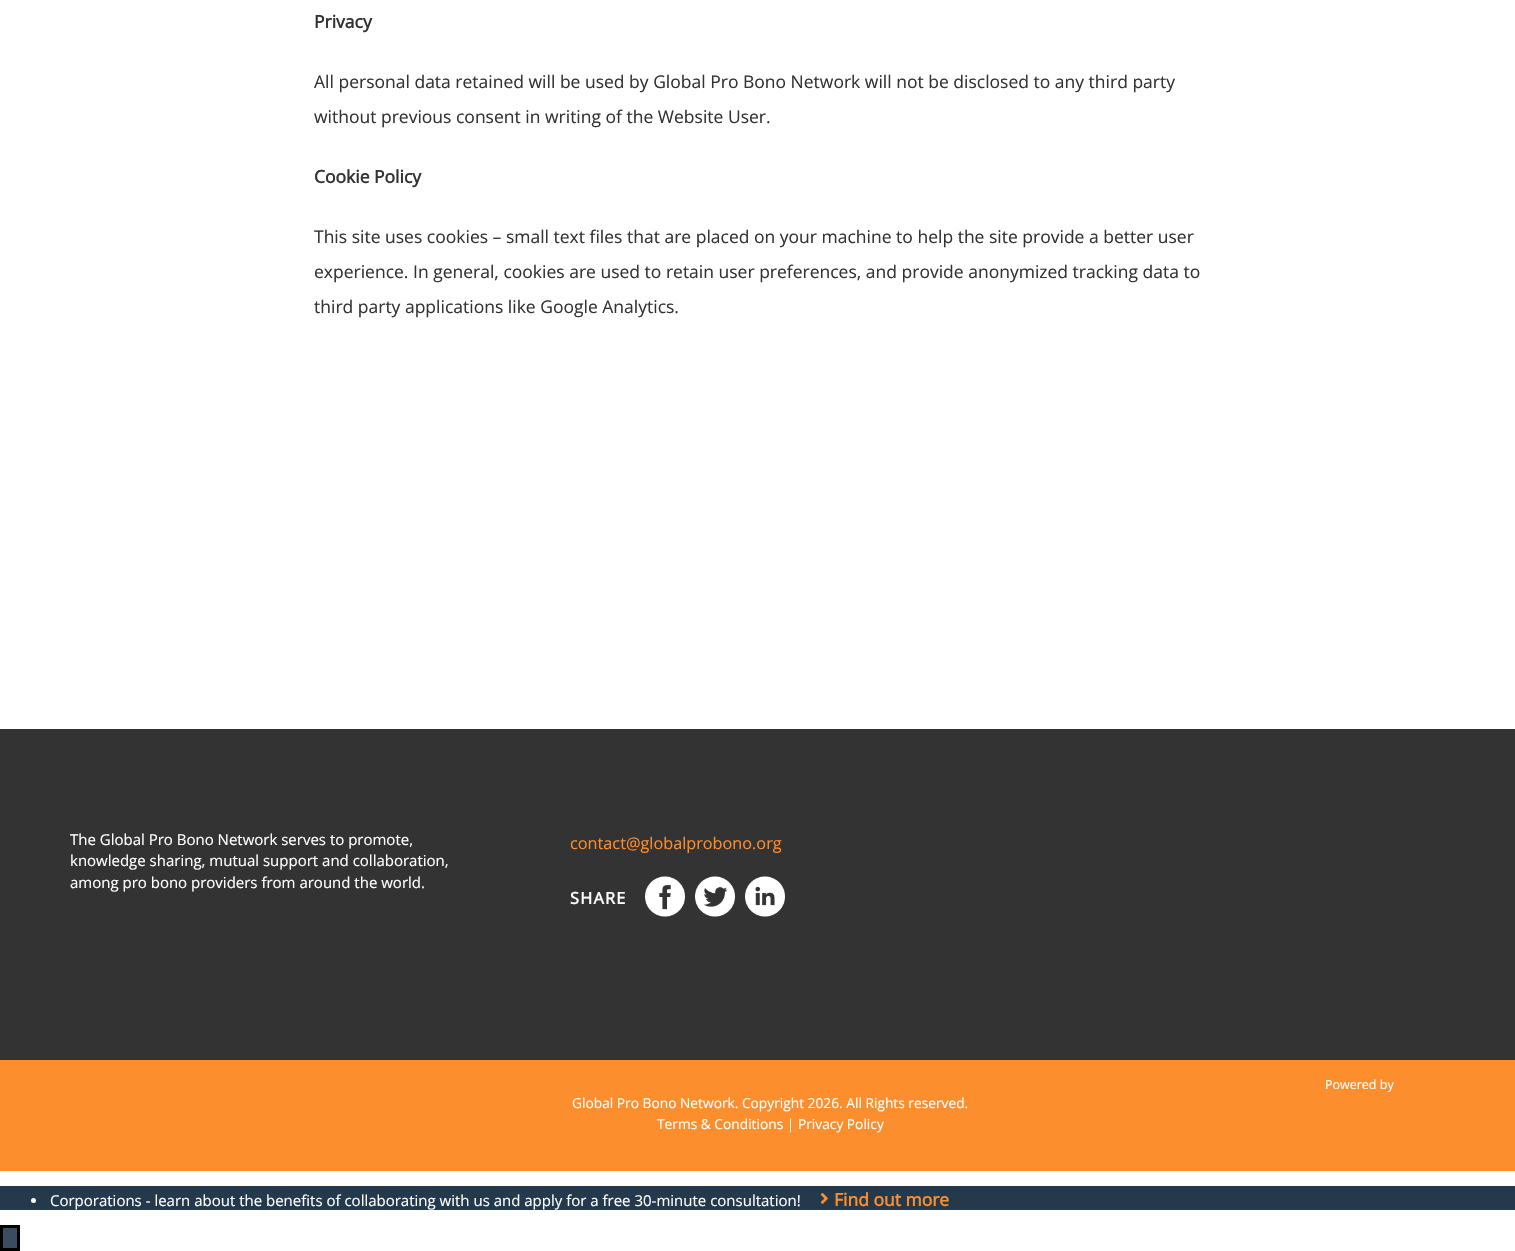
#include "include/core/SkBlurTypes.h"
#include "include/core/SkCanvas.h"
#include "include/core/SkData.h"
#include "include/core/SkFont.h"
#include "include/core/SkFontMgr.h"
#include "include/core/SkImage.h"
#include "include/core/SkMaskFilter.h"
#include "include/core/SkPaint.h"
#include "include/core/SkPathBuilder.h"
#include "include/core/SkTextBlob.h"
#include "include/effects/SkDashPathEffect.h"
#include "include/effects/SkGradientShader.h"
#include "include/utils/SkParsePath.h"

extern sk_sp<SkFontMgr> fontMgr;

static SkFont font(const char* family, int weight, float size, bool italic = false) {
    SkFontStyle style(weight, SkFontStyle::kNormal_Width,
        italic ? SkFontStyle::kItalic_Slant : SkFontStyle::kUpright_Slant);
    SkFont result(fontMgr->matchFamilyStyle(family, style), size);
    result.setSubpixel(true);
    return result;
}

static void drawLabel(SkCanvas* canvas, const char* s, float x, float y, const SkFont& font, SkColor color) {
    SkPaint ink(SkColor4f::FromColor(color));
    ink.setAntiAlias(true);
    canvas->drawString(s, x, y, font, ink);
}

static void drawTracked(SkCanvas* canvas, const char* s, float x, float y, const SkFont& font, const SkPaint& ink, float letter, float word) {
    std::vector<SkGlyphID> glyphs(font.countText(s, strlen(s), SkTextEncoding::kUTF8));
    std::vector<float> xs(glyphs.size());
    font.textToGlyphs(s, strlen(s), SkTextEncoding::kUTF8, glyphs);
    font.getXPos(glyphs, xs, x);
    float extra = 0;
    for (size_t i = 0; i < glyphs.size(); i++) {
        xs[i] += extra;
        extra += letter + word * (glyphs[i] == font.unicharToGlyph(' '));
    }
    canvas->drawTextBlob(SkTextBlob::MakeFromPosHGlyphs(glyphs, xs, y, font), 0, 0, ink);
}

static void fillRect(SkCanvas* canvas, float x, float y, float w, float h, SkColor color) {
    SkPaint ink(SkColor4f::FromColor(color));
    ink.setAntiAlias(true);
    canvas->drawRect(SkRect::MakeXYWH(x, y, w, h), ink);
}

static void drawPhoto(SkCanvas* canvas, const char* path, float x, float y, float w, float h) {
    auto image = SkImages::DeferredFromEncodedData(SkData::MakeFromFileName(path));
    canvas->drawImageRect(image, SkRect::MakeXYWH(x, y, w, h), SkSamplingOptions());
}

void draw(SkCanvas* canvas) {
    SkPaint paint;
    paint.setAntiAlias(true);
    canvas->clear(0xFFFFFFFF);
    SkFont font1 = font("Open Sans", 700, 17.5f);
    drawLabel(canvas, "Privacy", 314, 28, font1, 0xFF333333);
    SkFont font2 = font("Open Sans", 400, 17.5f);
    drawLabel(canvas, "All personal data retained will be used by Global Pro Bono Network will not be disclosed to any third party", 314, 88, font2, 0xFF333333);
    drawLabel(canvas, "without previous consent in writing of the Website User.", 314, 123, font2, 0xFF333333);
    drawLabel(canvas, "Cookie Policy", 314, 183, font1, 0xFF333333);
    drawLabel(canvas, "This site uses cookies – small text files that are placed on your machine to help the site provide a better user", 314, 243, font2, 0xFF333333);
    drawLabel(canvas, "experience. In general, cookies are used to retain user preferences, and provide anonymized tracking data to", 314, 278, font2, 0xFF333333);
    drawLabel(canvas, "third party applications like Google Analytics.", 314, 313, font2, 0xFF333333);
    fillRect(canvas, 0, 729, 1515, 331, 0xFF333333);
    SkFont font3 = font("Open Sans", 400, 15);
    drawLabel(canvas, "The Global Pro Bono Network serves to promote,", 70, 845, font3, 0xFFFFFFFF);
    drawLabel(canvas, "knowledge sharing, mutual support and collaboration,", 70, 866, font3, 0xFFFFFFFF);
    drawLabel(canvas, "among pro bono providers from around the world.", 70, 888, font3, 0xFFFFFFFF);
    SkFont font4 = font("Open Sans", 400, 16.25f);
    drawLabel(canvas, "contact@globalprobono.org", 570, 849, font4, 0xFFFD8E2E);
    SkFont font5 = font("Open Sans", 700, 16.25f);
    paint.setColor(0xFFFFFFFF);
    drawTracked(canvas, "SHARE", 570, 904, font5, paint, 1.25f, 0);
    drawPhoto(canvas, "assets/img1.png", 645, 876, 40, 41);
    drawPhoto(canvas, "assets/img2.png", 695, 876, 40, 41);
    drawPhoto(canvas, "assets/img3.png", 745, 876, 40, 41);
    fillRect(canvas, 0, 1060, 1515, 111, 0xFFFD8E2E);
    SkFont font6 = font("Open Sans", 400, 12.5f);
    drawLabel(canvas, "Powered by", 1325, 1089, font6, 0xFFFFFFFF);
    SkFont font7 = font("Open Sans", 400, 13.75f);
    drawLabel(canvas, "Global Pro Bono Network. Copyright 2026. All Rights reserved.", 572, 1108, font7, 0xFFFFFFFF);
    drawLabel(canvas, "Terms & Conditions | Privacy Policy", 657, 1129, font7, 0xFFFFFFFF);
    fillRect(canvas, 0, 1186, 1515, 24, 0xFF24394C);
    canvas->drawCircle(33.5f, 1200.5f, 2.5f, paint);
    drawLabel(canvas, "Corporations - learn about the benefits of collaborating with us and apply for a free 30-minute consultation!", 50, 1206, font3, 0xFFFFFFFF);
    drawPhoto(canvas, "assets/img4.png", 820, 1193, 8, 11);
    drawLabel(canvas, "Find out more", 834, 1206, font1, 0xFFFD8E2E);
    paint.setColor(0xFF3A4D5E);
    canvas->drawRect(SkRect::MakeXYWH(1.5f, 1226.5f, 17, 23), paint);
    paint.setStroke(true);
    paint.setStrokeWidth(3);
    paint.setColor(0xFF000000);
    canvas->drawRect(SkRect::MakeXYWH(1.5f, 1226.5f, 17, 23), paint);
}
